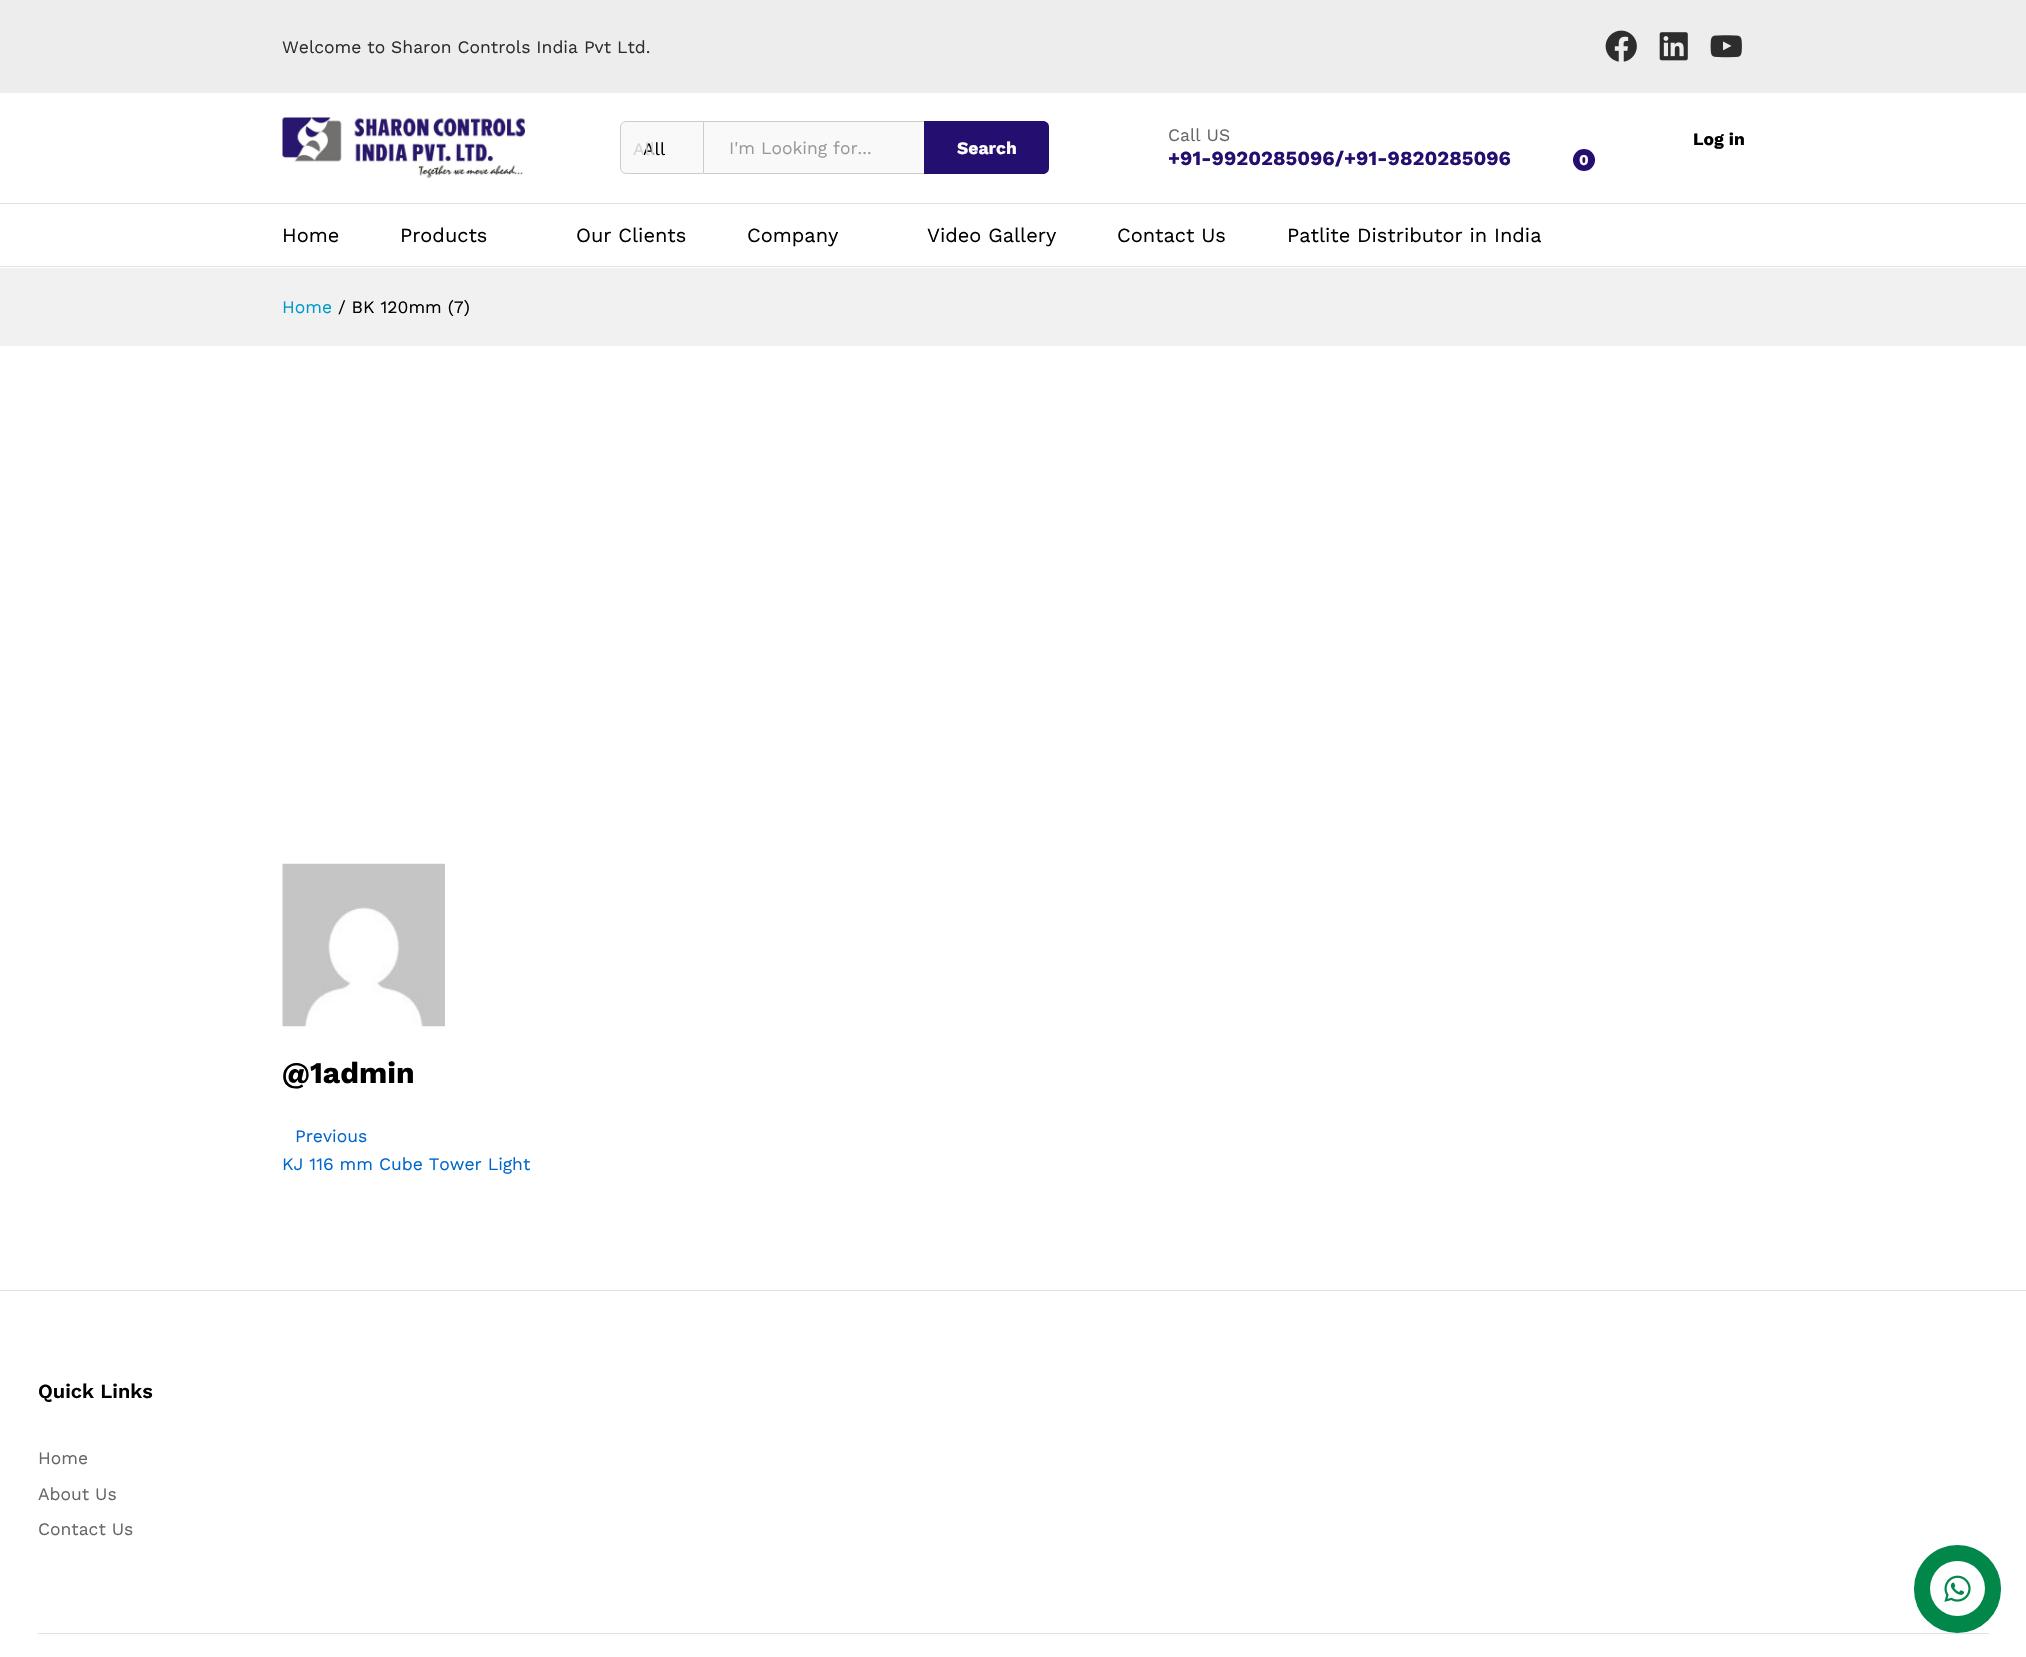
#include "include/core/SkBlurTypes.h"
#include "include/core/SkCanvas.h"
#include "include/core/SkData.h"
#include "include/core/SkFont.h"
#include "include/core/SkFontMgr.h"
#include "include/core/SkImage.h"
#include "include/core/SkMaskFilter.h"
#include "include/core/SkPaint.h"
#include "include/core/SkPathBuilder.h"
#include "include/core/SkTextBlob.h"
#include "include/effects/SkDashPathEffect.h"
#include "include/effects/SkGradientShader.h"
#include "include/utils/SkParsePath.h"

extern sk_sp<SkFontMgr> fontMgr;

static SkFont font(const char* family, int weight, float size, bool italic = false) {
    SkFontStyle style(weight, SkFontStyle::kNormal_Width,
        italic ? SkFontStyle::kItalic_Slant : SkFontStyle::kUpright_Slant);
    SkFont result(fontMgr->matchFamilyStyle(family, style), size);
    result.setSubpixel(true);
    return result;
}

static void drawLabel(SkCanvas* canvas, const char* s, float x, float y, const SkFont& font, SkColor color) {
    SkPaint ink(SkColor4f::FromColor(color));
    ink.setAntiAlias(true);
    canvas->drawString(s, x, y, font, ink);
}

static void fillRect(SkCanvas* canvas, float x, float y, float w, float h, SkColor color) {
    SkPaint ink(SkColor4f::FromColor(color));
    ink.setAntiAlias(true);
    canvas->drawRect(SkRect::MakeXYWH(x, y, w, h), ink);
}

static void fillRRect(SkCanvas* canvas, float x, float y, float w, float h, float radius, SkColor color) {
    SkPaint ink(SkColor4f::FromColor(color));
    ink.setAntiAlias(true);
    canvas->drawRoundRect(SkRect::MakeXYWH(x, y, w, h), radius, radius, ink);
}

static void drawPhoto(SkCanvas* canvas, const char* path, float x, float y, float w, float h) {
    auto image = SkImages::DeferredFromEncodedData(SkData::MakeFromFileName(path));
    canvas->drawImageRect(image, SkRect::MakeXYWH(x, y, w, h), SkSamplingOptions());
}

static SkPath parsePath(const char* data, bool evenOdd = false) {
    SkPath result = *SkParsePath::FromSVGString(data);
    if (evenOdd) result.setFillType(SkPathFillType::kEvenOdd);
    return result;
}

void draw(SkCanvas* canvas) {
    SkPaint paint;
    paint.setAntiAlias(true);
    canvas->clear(0xFFFFFFFF);
    fillRect(canvas, 0, 0, 2026, 93, 0xFFEDEDED);
    SkFont font1 = font("Work Sans", 400, 17.5f);
    drawLabel(canvas, "Welcome to Sharon Controls India Pvt Ltd.", 282, 53, font1, 0xFF2D2D2D);
    drawPhoto(canvas, "assets/img1.png", 1605, 30, 32, 32);
    drawPhoto(canvas, "assets/img2.png", 1659, 32, 29, 29);
    drawPhoto(canvas, "assets/img3.png", 1710, 35, 32, 23);
    drawPhoto(canvas, "assets/img4.png", 282, 117, 243, 61);
    paint.setColor(0xFFF9F9F9);
    canvas->drawPath(parsePath("M626 121.5H703.5V173.5H626C623 173.5 620.5 171 620.5 168V127C620.5 124 623 121.5 626 121.5Z"), paint);
    paint.setStroke(true);
    paint.setStrokeWidth(1);
    paint.setColor(0xFFCCCCCC);
    canvas->drawPath(parsePath("M626 121.5H703.5V173.5H626C623 173.5 620.5 171 620.5 168V127C620.5 124 623 121.5 626 121.5Z"), paint);
    drawLabel(canvas, "All", 643, 155, font1, 0xFF000000);
    drawLabel(canvas, "All", 633, 155, font1, 0xFFD3D3D3);
    fillRect(canvas, 704, 122, 220, 51, 0xFFF9F9F9);
    fillRect(canvas, 704, 121, 220, 1, 0xFFCCCCCC);
    fillRect(canvas, 704, 173, 220, 1, 0xFFCCCCCC);
    drawLabel(canvas, "I'm Looking for...", 729, 154, font1, 0xFF999999);
    paint.setStroke(false);
    paint.setColor(0xFF240E70);
    canvas->drawPath(parsePath("M924 121H1043C1046.5 121 1049 123.5 1049 127V168C1049 171.5 1046.5 174 1043 174H924Z"), paint);
    SkFont font2 = font("Work Sans", 700, 17.5f);
    drawLabel(canvas, "Search", 957, 154, font2, 0xFFFFFFFF);
    drawLabel(canvas, "Call US", 1168, 141, font1, 0xFF666666);
    SkFont font3 = font("Work Sans", 700, 20);
    drawLabel(canvas, "+91-9920285096/+91-9820285096", 1168, 165, font3, 0xFF240E70);
    drawLabel(canvas, "Log in", 1693, 145, font2, 0xFF000000);
    canvas->drawCircle(1584, 160, 11, paint);
    SkFont font4 = font("Work Sans", 700, 15);
    drawLabel(canvas, "0", 1579, 165, font4, 0xFFFFFFFF);
    fillRect(canvas, 0, 203, 2026, 1, 0xFFE1E1E1);
    fillRect(canvas, 0, 266, 2026, 1, 0xFFE1E1E1);
    SkFont font5 = font("Work Sans", 400, 20);
    drawLabel(canvas, "Home", 282, 242, font5, 0xFF000000);
    drawLabel(canvas, "Products", 400, 242, font5, 0xFF000000);
    drawLabel(canvas, "Our Clients", 576, 242, font5, 0xFF000000);
    drawLabel(canvas, "Company", 747, 242, font5, 0xFF000000);
    drawLabel(canvas, "Video Gallery", 927, 242, font5, 0xFF000000);
    drawLabel(canvas, "Contact Us", 1117, 242, font5, 0xFF000000);
    drawLabel(canvas, "Patlite Distributor in India", 1287, 242, font5, 0xFF000000);
    fillRect(canvas, 0, 268, 2026, 78, 0xFFF1F1F1);
    drawLabel(canvas, "Home", 282, 313, font1, 0xFF0099CC);
    drawLabel(canvas, "/ BK 120mm (7)", 338, 313, font1, 0xFF000000);
    drawPhoto(canvas, "assets/img5.png", 282, 863, 163, 164);
    SkFont font6 = font("Work Sans", 700, 30);
    drawLabel(canvas, "@1admin", 282, 1083, font6, 0xFF000000);
    drawLabel(canvas, "Previous", 295, 1142, font1, 0xFF0066CC);
    drawLabel(canvas, "KJ 116 mm Cube Tower Light", 282, 1170, font1, 0xFF0066CC);
    fillRect(canvas, 0, 1290, 2026, 1, 0xFFE1E1E1);
    SkFont font7 = font("Work Sans", 600, 20);
    drawLabel(canvas, "Quick Links", 38, 1398, font7, 0xFF000000);
    drawLabel(canvas, "Home", 38, 1464, font1, 0xFF666666);
    drawLabel(canvas, "About Us", 38, 1500, font1, 0xFF666666);
    drawLabel(canvas, "Contact Us", 38, 1535, font1, 0xFF666666);
    fillRect(canvas, 38, 1633, 1951, 1, 0xFFE1E1E1);
    fillRRect(canvas, 1914, 1545, 87, 88, 43.5f, 0xFF008749);
    paint.setColor(0xFFFFFFFF);
    canvas->drawCircle(1957.5f, 1588.5f, 27.5f, paint);
    drawPhoto(canvas, "assets/img6.png", 1944, 1575, 27, 27);
}
